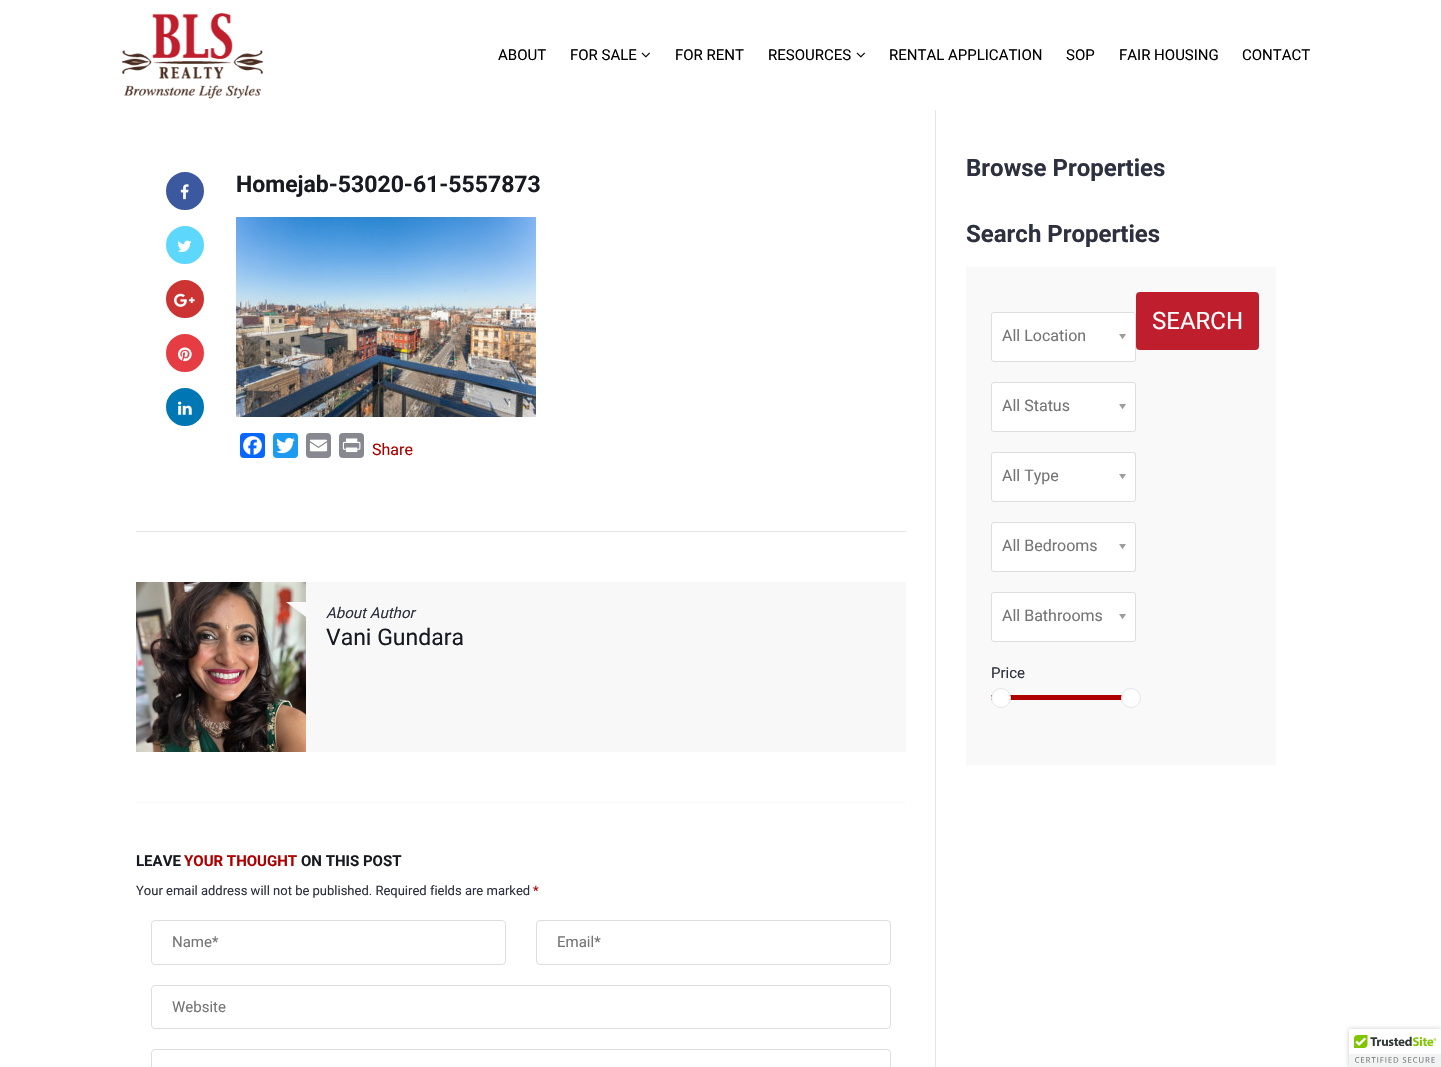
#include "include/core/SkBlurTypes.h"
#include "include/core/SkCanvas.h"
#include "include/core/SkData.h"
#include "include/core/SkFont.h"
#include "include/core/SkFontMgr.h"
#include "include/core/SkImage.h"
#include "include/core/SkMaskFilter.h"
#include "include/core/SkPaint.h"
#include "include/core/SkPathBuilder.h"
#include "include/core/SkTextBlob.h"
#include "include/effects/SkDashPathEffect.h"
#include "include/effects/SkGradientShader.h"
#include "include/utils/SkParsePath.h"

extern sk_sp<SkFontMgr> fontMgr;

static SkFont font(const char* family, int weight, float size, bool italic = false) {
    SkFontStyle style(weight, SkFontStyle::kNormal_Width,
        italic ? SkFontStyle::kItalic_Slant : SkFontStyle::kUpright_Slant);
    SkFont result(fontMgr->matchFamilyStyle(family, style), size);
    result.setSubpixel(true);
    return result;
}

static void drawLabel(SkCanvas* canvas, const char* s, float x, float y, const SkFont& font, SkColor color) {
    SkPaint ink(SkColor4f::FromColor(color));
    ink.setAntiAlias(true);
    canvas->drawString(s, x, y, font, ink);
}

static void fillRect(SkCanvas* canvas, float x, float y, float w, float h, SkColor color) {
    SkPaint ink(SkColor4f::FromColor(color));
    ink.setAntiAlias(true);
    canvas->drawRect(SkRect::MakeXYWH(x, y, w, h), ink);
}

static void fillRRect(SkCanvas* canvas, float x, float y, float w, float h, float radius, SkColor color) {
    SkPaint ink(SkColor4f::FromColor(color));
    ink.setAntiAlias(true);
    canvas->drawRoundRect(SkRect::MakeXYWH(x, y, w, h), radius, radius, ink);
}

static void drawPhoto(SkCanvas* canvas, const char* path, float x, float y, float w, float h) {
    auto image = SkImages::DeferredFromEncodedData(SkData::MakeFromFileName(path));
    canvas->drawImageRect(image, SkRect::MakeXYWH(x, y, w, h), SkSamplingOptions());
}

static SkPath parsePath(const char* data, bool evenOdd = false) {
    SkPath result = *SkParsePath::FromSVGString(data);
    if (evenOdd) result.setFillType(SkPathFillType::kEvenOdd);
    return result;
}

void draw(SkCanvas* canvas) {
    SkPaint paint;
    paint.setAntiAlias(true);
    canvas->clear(0xFFFFFFFF);
    drawPhoto(canvas, "assets/img1.png", 121, 13, 142, 86);
    SkFont font1 = font("Roboto", 400, 15);
    drawLabel(canvas, "ABOUT", 498, 60, font1, 0xFF000000);
    drawLabel(canvas, "FOR SALE", 570, 60, font1, 0xFF000000);
    drawPhoto(canvas, "assets/img2.png", 641, 52, 9, 6);
    drawLabel(canvas, "FOR RENT", 675, 60, font1, 0xFF000000);
    drawLabel(canvas, "RESOURCES", 768, 60, font1, 0xFF000000);
    drawPhoto(canvas, "assets/img2.png", 856, 52, 9, 6);
    drawLabel(canvas, "RENTAL APPLICATION", 889, 60, font1, 0xFF000000);
    drawLabel(canvas, "SOP", 1066, 60, font1, 0xFF000000);
    drawLabel(canvas, "FAIR HOUSING", 1119, 60, font1, 0xFF000000);
    drawLabel(canvas, "CONTACT", 1242, 60, font1, 0xFF000000);
    fillRect(canvas, 935, 110, 1, 957, 0xFFE5E5E5);
    fillRect(canvas, 136, 802, 770, 1, 0xFFF8F8F8);
    fillRect(canvas, 136, 531, 770, 1, 0xFFE5E5E5);
    paint.setColor(0xFF3C599F);
    canvas->drawCircle(185, 191, 18, paint);
    paint.setStroke(true);
    paint.setStrokeWidth(2);
    canvas->drawCircle(185, 191, 18, paint);
    drawPhoto(canvas, "assets/img3.png", 180, 184, 9, 16);
    paint.setStroke(false);
    paint.setColor(0xFF5DD7FC);
    canvas->drawCircle(185, 245, 18, paint);
    paint.setStroke(true);
    canvas->drawCircle(185, 245, 18, paint);
    drawPhoto(canvas, "assets/img4.png", 177, 240, 15, 12);
    paint.setStroke(false);
    paint.setColor(0xFFCC3433);
    canvas->drawCircle(185, 299, 18, paint);
    paint.setStroke(true);
    canvas->drawCircle(185, 299, 18, paint);
    drawPhoto(canvas, "assets/img5.png", 174, 293, 21, 14);
    paint.setStroke(false);
    paint.setColor(0xFFE63D44);
    canvas->drawCircle(185, 353, 18, paint);
    paint.setStroke(true);
    canvas->drawCircle(185, 353, 18, paint);
    drawPhoto(canvas, "assets/img6.png", 178, 347, 14, 15);
    paint.setStroke(false);
    paint.setColor(0xFF0077B5);
    canvas->drawCircle(185, 407, 18, paint);
    paint.setStroke(true);
    canvas->drawCircle(185, 407, 18, paint);
    drawPhoto(canvas, "assets/img7.png", 178, 401, 14, 14);
    SkFont font2 = font("Roboto", 700, 23);
    drawLabel(canvas, "Homejab-53020-61-5557873", 236, 192, font2, 0xFF181A21);
    drawPhoto(canvas, "assets/img8.png", 236, 217, 300, 200);
    fillRRect(canvas, 240, 433, 25, 25, 4, 0xFF0866FF);
    drawPhoto(canvas, "assets/img9.png", 243, 436, 19, 19);
    fillRRect(canvas, 273, 433, 25, 25, 4, 0xFF1D9BF0);
    drawPhoto(canvas, "assets/img10.png", 276, 437, 19, 17);
    fillRRect(canvas, 306, 433, 25, 25, 4, 0xFF888990);
    drawPhoto(canvas, "assets/img11.png", 309, 439, 19, 13);
    fillRRect(canvas, 339, 433, 25, 25, 4, 0xFF888990);
    drawPhoto(canvas, "assets/img12.png", 342, 438, 19, 15);
    SkFont font3 = font("Roboto", 400, 16);
    drawLabel(canvas, "Share", 372, 455, font3, 0xFFAF0000);
    fillRect(canvas, 306, 582, 600, 170, 0xFFF8F8F8);
    drawPhoto(canvas, "assets/img13.png", 136, 582, 170, 170);
    paint.setStroke(false);
    paint.setColor(0xFFF9F9F9);
    canvas->drawPath(parsePath("M306 602V617L286 602Z"), paint);
    SkFont font4 = font("Roboto", 400, 15, true);
    drawLabel(canvas, "About Author", 326, 618, font4, 0xFF2D313F);
    SkFont font5 = font("Roboto", 400, 23);
    drawLabel(canvas, "Vani Gundara", 326, 645, font5, 0xFF181A21);
    SkFont font6 = font("Roboto", 700, 15);
    drawLabel(canvas, "LEAVE", 136, 866, font6, 0xFF181A21);
    drawLabel(canvas, "YOUR THOUGHT", 184, 866, font6, 0xFFAF0000);
    drawLabel(canvas, "ON THIS POST", 301, 866, font6, 0xFF181A21);
    SkFont font7 = font("Roboto", 400, 13);
    drawLabel(canvas, "Your email address will not be published. Required fields are marked", 136, 895, font7, 0xFF2D313F);
    drawLabel(canvas, "*", 533, 895, font7, 0xFFAF0000);
    paint.setStroke(true);
    paint.setStrokeWidth(1);
    paint.setColor(0xFFDEDEDE);
    canvas->drawRoundRect(SkRect::MakeXYWH(151.5f, 920.5f, 354, 44), 3.5f, 3.5f, paint);
    drawLabel(canvas, "Name*", 172, 947, font1, 0xFF757575);
    canvas->drawRoundRect(SkRect::MakeXYWH(536.5f, 920.5f, 354, 44), 3.5f, 3.5f, paint);
    drawLabel(canvas, "Email*", 557, 947, font1, 0xFF757575);
    canvas->drawRoundRect(SkRect::MakeXYWH(151.5f, 985.5f, 739, 43), 3.5f, 3.5f, paint);
    drawLabel(canvas, "Website", 172, 1012, font1, 0xFF757575);
    canvas->drawRoundRect(SkRect::MakeXYWH(151.5f, 1049.5f, 739, 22), 3.5f, 3.5f, paint);
    SkFont font8 = font("Roboto", 700, 24);
    drawLabel(canvas, "Browse Properties", 966, 176, font8, 0xFF2D313F);
    drawLabel(canvas, "Search Properties", 966, 242, font8, 0xFF2D313F);
    fillRect(canvas, 966, 267, 310, 498, 0xFFF9F9F9);
    fillRRect(canvas, 1136, 292, 123, 58, 4, 0xFFBF1E2D);
    SkFont font9 = font("Roboto", 400, 24);
    drawLabel(canvas, "SEARCH", 1152, 329, font9, 0xFFFFFFFF);
    paint.setStroke(false);
    paint.setColor(0xFFFFFFFF);
    canvas->drawRoundRect(SkRect::MakeXYWH(991.5f, 312.5f, 144, 49), 2.5f, 2.5f, paint);
    paint.setStroke(true);
    paint.setColor(0xFFDEDEDE);
    canvas->drawRoundRect(SkRect::MakeXYWH(991.5f, 312.5f, 144, 49), 2.5f, 2.5f, paint);
    drawLabel(canvas, "All Location", 1002, 341, font3, 0xFF757575);
    drawPhoto(canvas, "assets/img14.png", 1119, 334, 7, 6);
    paint.setStroke(false);
    paint.setColor(0xFFFFFFFF);
    canvas->drawRoundRect(SkRect::MakeXYWH(991.5f, 382.5f, 144, 49), 2.5f, 2.5f, paint);
    paint.setStroke(true);
    paint.setColor(0xFFDEDEDE);
    canvas->drawRoundRect(SkRect::MakeXYWH(991.5f, 382.5f, 144, 49), 2.5f, 2.5f, paint);
    drawLabel(canvas, "All Status", 1002, 411, font3, 0xFF757575);
    drawPhoto(canvas, "assets/img14.png", 1119, 404, 7, 6);
    paint.setStroke(false);
    paint.setColor(0xFFFFFFFF);
    canvas->drawRoundRect(SkRect::MakeXYWH(991.5f, 452.5f, 144, 49), 2.5f, 2.5f, paint);
    paint.setStroke(true);
    paint.setColor(0xFFDEDEDE);
    canvas->drawRoundRect(SkRect::MakeXYWH(991.5f, 452.5f, 144, 49), 2.5f, 2.5f, paint);
    drawLabel(canvas, "All Type", 1002, 481, font3, 0xFF757575);
    drawPhoto(canvas, "assets/img14.png", 1119, 474, 7, 6);
    paint.setStroke(false);
    paint.setColor(0xFFFFFFFF);
    canvas->drawRoundRect(SkRect::MakeXYWH(991.5f, 522.5f, 144, 49), 2.5f, 2.5f, paint);
    paint.setStroke(true);
    paint.setColor(0xFFDEDEDE);
    canvas->drawRoundRect(SkRect::MakeXYWH(991.5f, 522.5f, 144, 49), 2.5f, 2.5f, paint);
    drawLabel(canvas, "All Bedrooms", 1002, 551, font3, 0xFF757575);
    drawPhoto(canvas, "assets/img14.png", 1119, 544, 7, 6);
    paint.setStroke(false);
    paint.setColor(0xFFFFFFFF);
    canvas->drawRoundRect(SkRect::MakeXYWH(991.5f, 592.5f, 144, 49), 2.5f, 2.5f, paint);
    paint.setStroke(true);
    paint.setColor(0xFFDEDEDE);
    canvas->drawRoundRect(SkRect::MakeXYWH(991.5f, 592.5f, 144, 49), 2.5f, 2.5f, paint);
    drawLabel(canvas, "All Bathrooms", 1002, 621, font3, 0xFF757575);
    drawPhoto(canvas, "assets/img14.png", 1119, 614, 7, 6);
    drawLabel(canvas, "Price", 991, 678, font1, 0xFF2D313F);
    fillRect(canvas, 991, 695, 131, 5, 0xFFAF0000);
    paint.setStroke(false);
    paint.setColor(0xFFFFFFFF);
    canvas->drawCircle(1001, 698, 9.5f, paint);
    paint.setStroke(true);
    paint.setColor(0xFFE5E5E5);
    canvas->drawCircle(1001, 698, 9.5f, paint);
    paint.setStroke(false);
    paint.setColor(0xFFFFFFFF);
    canvas->drawCircle(1131, 698, 9.5f, paint);
    paint.setStroke(true);
    paint.setColor(0xFFE5E5E5);
    canvas->drawCircle(1131, 698, 9.5f, paint);
    paint.setStroke(false);
    paint.setColor(0x33000000);
    paint.setMaskFilter(SkMaskFilter::MakeBlur(kNormal_SkBlurStyle, 2.5f));
    canvas->drawRoundRect(SkRect::MakeXYWH(1349, 1029, 92, 38), 2, 2, paint);
    paint.setMaskFilter(nullptr);
    paint.setColor(0xFFFFFFFF);
    canvas->drawPath(parsePath("M1351 1029H1441V1067H1349V1031C1349 1030 1350 1029 1351 1029Z"), paint);
    drawPhoto(canvas, "assets/img15.png", 1349, 1029, 92, 38);
}
